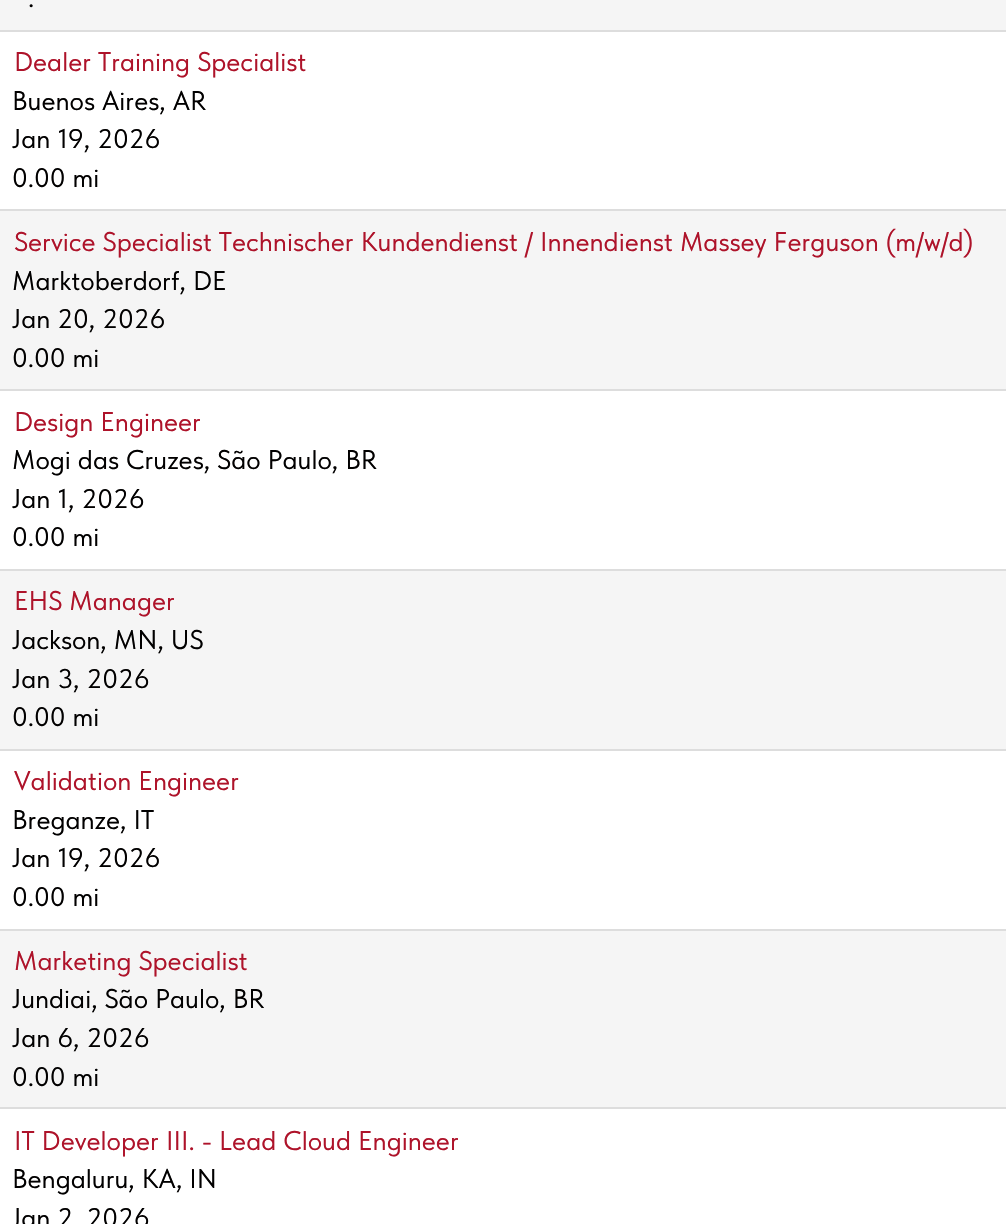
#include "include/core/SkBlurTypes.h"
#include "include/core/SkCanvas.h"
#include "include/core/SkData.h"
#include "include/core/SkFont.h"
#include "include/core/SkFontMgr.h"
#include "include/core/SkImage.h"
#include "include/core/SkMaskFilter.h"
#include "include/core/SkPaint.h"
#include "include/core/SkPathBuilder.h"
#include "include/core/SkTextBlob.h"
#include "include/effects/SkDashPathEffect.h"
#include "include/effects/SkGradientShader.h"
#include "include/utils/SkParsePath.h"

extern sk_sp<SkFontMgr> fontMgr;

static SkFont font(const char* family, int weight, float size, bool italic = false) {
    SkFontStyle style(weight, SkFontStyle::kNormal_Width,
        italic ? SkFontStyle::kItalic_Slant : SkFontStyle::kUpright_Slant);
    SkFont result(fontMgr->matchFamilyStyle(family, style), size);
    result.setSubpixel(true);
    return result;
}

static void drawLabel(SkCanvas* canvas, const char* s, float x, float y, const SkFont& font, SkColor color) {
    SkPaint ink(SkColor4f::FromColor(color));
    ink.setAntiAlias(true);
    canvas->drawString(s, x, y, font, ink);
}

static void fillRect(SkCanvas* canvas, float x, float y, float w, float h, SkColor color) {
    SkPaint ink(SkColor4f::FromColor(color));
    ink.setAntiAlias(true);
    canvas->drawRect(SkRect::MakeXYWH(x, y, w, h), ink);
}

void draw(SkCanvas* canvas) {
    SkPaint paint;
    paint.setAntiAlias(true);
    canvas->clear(0xFFFFFFFF);
    fillRect(canvas, 0, 0, 1006, 30, 0xFFF5F5F5);
    SkFont font1 = font("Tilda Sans", 400, 27);
    drawLabel(canvas, ".", 28, 7, font1, 0xFF010000);
    fillRect(canvas, 0, 30, 1006, 2, 0xFFDDDDDD);
    drawLabel(canvas, "Dealer Training Specialist", 14, 71, font1, 0xFFAE132A);
    drawLabel(canvas, "Buenos Aires, AR", 12, 110, font1, 0xFF010000);
    drawLabel(canvas, "Jan 19, 2026", 12, 148, font1, 0xFF010000);
    drawLabel(canvas, "0.00 mi", 12, 187, font1, 0xFF010000);
    fillRect(canvas, 0, 211, 1006, 178, 0xFFF5F5F5);
    fillRect(canvas, 0, 209, 1006, 2, 0xFFDDDDDD);
    drawLabel(canvas, "Service Specialist Technischer Kundendienst / Innendienst Massey Ferguson (m/w/d)", 14, 251, font1, 0xFFAE132A);
    drawLabel(canvas, "Marktoberdorf, DE", 12, 290, font1, 0xFF010000);
    drawLabel(canvas, "Jan 20, 2026", 12, 328, font1, 0xFF010000);
    drawLabel(canvas, "0.00 mi", 12, 367, font1, 0xFF010000);
    fillRect(canvas, 0, 389, 1006, 2, 0xFFDDDDDD);
    drawLabel(canvas, "Design Engineer", 14, 431, font1, 0xFFAE132A);
    drawLabel(canvas, "Mogi das Cruzes, São Paulo, BR", 12, 469, font1, 0xFF010000);
    drawLabel(canvas, "Jan 1, 2026", 12, 508, font1, 0xFF010000);
    drawLabel(canvas, "0.00 mi", 12, 546, font1, 0xFF010000);
    fillRect(canvas, 0, 571, 1006, 178, 0xFFF5F5F5);
    fillRect(canvas, 0, 569, 1006, 2, 0xFFDDDDDD);
    drawLabel(canvas, "EHS Manager", 14, 610, font1, 0xFFAE132A);
    drawLabel(canvas, "Jackson, MN, US", 12, 649, font1, 0xFF010000);
    drawLabel(canvas, "Jan 3, 2026", 12, 688, font1, 0xFF010000);
    drawLabel(canvas, "0.00 mi", 12, 726, font1, 0xFF010000);
    fillRect(canvas, 0, 749, 1006, 2, 0xFFDDDDDD);
    drawLabel(canvas, "Validation Engineer", 14, 790, font1, 0xFFAE132A);
    drawLabel(canvas, "Breganze, IT", 12, 829, font1, 0xFF010000);
    drawLabel(canvas, "Jan 19, 2026", 12, 867, font1, 0xFF010000);
    drawLabel(canvas, "0.00 mi", 12, 906, font1, 0xFF010000);
    fillRect(canvas, 0, 931, 1006, 176, 0xFFF5F5F5);
    fillRect(canvas, 0, 929, 1006, 2, 0xFFDDDDDD);
    drawLabel(canvas, "Marketing Specialist", 14, 970, font1, 0xFFAE132A);
    drawLabel(canvas, "Jundiai, São Paulo, BR", 12, 1008, font1, 0xFF010000);
    drawLabel(canvas, "Jan 6, 2026", 12, 1047, font1, 0xFF010000);
    drawLabel(canvas, "0.00 mi", 12, 1086, font1, 0xFF010000);
    fillRect(canvas, 0, 1107, 1006, 2, 0xFFDDDDDD);
    drawLabel(canvas, "IT Developer III. - Lead Cloud Engineer", 14, 1150, font1, 0xFFAE132A);
    drawLabel(canvas, "Bengaluru, KA, IN", 12, 1188, font1, 0xFF010000);
    drawLabel(canvas, "Jan 2, 2026", 12, 1227, font1, 0xFF010000);
}
